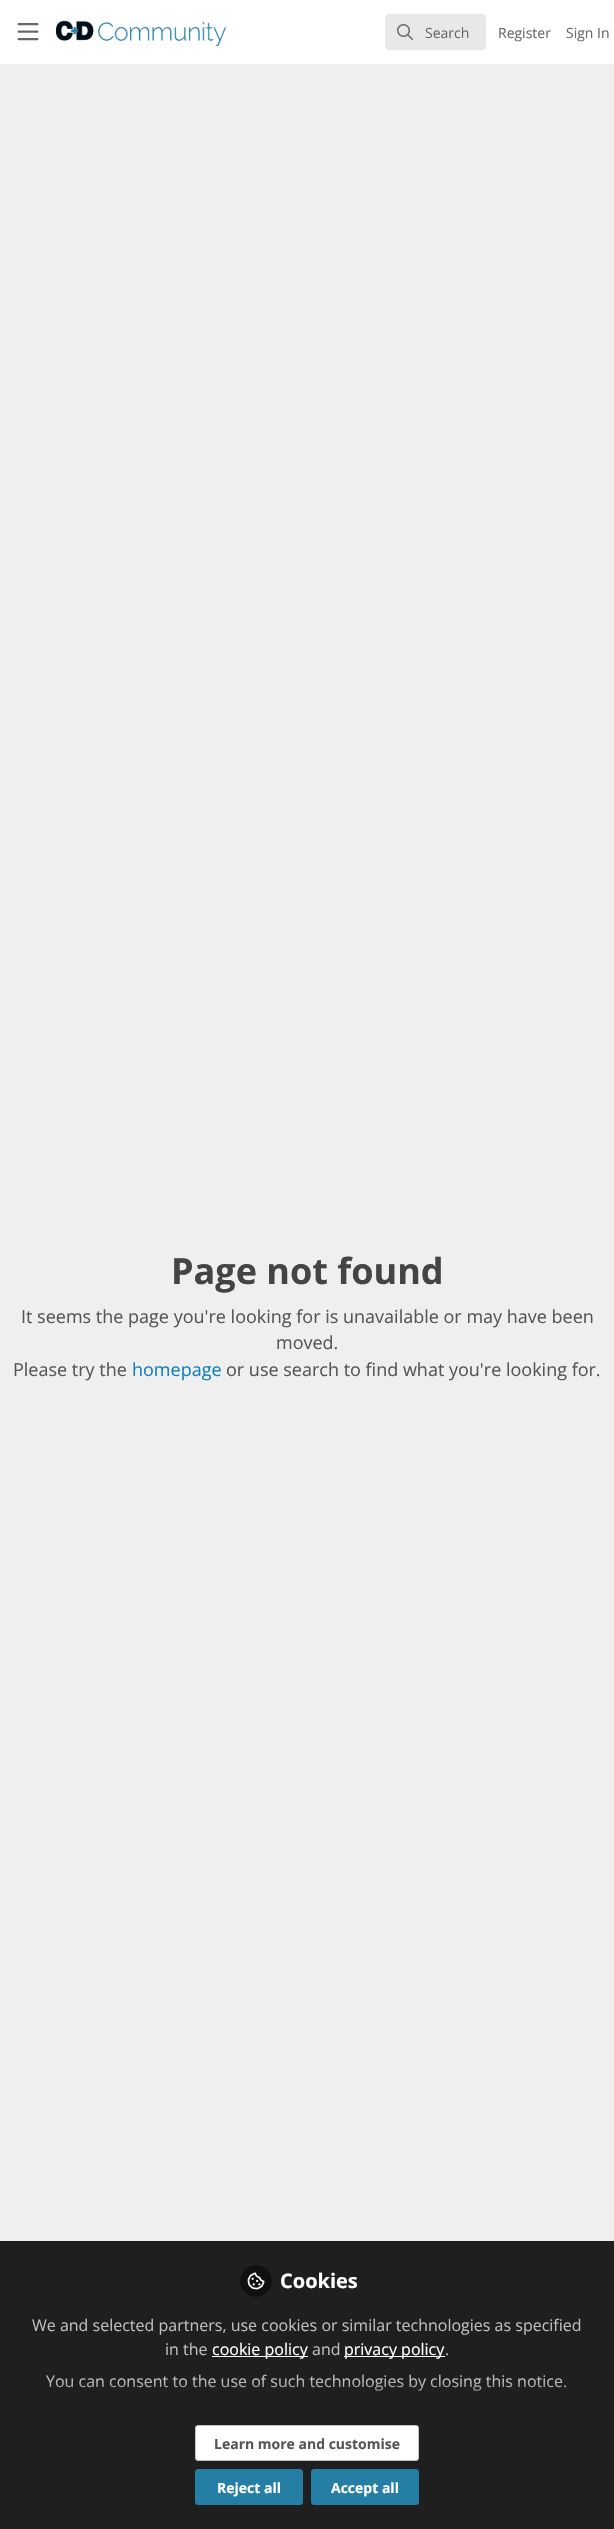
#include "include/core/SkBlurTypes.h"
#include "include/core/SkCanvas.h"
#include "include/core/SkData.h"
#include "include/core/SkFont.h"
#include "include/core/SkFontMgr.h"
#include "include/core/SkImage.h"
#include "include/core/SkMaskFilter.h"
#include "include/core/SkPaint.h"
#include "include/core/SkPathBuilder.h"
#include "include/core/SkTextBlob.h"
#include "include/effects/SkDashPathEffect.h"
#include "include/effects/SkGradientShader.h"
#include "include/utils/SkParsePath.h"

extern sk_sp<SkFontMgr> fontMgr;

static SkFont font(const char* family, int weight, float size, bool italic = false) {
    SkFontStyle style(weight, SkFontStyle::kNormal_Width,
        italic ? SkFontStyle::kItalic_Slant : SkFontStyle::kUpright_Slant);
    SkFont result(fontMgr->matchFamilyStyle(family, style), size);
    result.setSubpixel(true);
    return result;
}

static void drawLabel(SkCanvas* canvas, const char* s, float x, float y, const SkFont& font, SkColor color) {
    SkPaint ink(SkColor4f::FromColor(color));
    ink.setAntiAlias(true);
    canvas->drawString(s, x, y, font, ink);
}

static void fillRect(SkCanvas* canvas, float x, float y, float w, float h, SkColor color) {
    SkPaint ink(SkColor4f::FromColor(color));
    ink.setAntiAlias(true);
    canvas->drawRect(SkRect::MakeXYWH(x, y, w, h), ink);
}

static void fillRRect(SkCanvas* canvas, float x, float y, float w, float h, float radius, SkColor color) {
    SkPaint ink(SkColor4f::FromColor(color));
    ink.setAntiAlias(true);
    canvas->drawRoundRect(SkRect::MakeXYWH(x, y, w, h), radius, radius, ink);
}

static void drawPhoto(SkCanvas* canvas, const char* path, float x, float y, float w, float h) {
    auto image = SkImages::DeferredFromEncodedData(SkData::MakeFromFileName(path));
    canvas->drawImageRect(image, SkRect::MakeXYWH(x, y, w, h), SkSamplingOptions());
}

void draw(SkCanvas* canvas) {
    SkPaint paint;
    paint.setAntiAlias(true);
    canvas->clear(0xFFEFEFEF);
    fillRect(canvas, 0, 0, 614, 64, 0xFFFFFFFF);
    drawPhoto(canvas, "assets/img1.png", 17, 23, 22, 18);
    drawPhoto(canvas, "assets/img2.png", 56, 20, 170, 26);
    fillRRect(canvas, 385, 14, 101, 36, 4, 0xFFE8E8E8);
    drawPhoto(canvas, "assets/img3.png", 397, 24, 16, 16);
    SkFont font1 = font("Open Sans", 400, 14);
    drawLabel(canvas, "Search", 425, 38, font1, 0xFF686868);
    drawLabel(canvas, "Register", 498, 38, font1, 0xFF686868);
    drawLabel(canvas, "Sign In", 566, 38, font1, 0xFF686868);
    SkFont font2 = font("Open Sans", 700, 36);
    drawLabel(canvas, "Page not found", 171, 1284, font2, 0xFF444444);
    SkFont font3 = font("Open Sans", 400, 18);
    drawLabel(canvas, "It seems the page you're looking for is unavailable or may have been", 21, 1323, font3, 0xFF565558);
    drawLabel(canvas, "moved.", 276, 1349, font3, 0xFF565558);
    drawLabel(canvas, "Please try the", 13, 1376, font3, 0xFF565558);
    drawLabel(canvas, "homepage", 132, 1376, font3, 0xFF1280BE);
    drawLabel(canvas, "or use search to find what you're looking for.", 226, 1376, font3, 0xFF565558);
    fillRect(canvas, 0, 2241, 614, 288, 0xFF1F1F1F);
    paint.setColor(0xFF101010);
    canvas->drawCircle(256, 2281, 16, paint);
    drawPhoto(canvas, "assets/img4.png", 247, 2272, 18, 18);
    SkFont font4 = font("Open Sans", 700, 20);
    drawLabel(canvas, "Cookies", 280, 2288, font4, 0xFFFFFFFF);
    SkFont font5 = font("Open Sans", 400, 16);
    drawLabel(canvas, "We and selected partners, use cookies or similar technologies as specified", 32, 2331, font5, 0xFFBEBEBE);
    drawLabel(canvas, "in the", 165, 2355, font5, 0xFFBEBEBE);
    fillRect(canvas, 212, 2356, 96, 1, 0xFFFFFFFF);
    drawLabel(canvas, "cookie policy", 212, 2355, font5, 0xFFFFFFFF);
    drawLabel(canvas, "and", 312, 2355, font5, 0xFFBEBEBE);
    fillRect(canvas, 344, 2356, 101, 1, 0xFFFFFFFF);
    drawLabel(canvas, "privacy policy", 344, 2355, font5, 0xFFFFFFFF);
    drawLabel(canvas, ".", 445, 2355, font5, 0xFFBEBEBE);
    drawLabel(canvas, "You can consent to the use of such technologies by closing this notice.", 46, 2387, font5, 0xFFBEBEBE);
    {
        const SkColor colors[] = {0xFF1F1F1F, 0x001F1F1F};
        const float stops[] = {0, 1};
        const SkPoint ends[] = {{307, 2413}, {307, 2381}};
        paint.setShader(SkGradientShader::MakeLinear(ends, colors, stops, 2, SkTileMode::kClamp));
        paint.setAlpha(255);
    }
    canvas->drawRect(SkRect::MakeXYWH(50, 2382, 517, 9), paint);
    paint.setShader(nullptr);
    paint.setColor(0xFFFFFFFF);
    canvas->drawRoundRect(SkRect::MakeXYWH(195.5f, 2425.5f, 223, 35), 2.5f, 2.5f, paint);
    paint.setStroke(true);
    paint.setStrokeWidth(1);
    paint.setColor(0xFFC3C3C3);
    canvas->drawRoundRect(SkRect::MakeXYWH(195.5f, 2425.5f, 223, 35), 2.5f, 2.5f, paint);
    SkFont font6 = font("Open Sans", 700, 14);
    drawLabel(canvas, "Learn more and customise", 214, 2449, font6, 0xFF565558);
    paint.setStroke(false);
    paint.setColor(0xFF257EA4);
    canvas->drawRoundRect(SkRect::MakeXYWH(195.5f, 2469.5f, 107, 35), 2.5f, 2.5f, paint);
    paint.setStroke(true);
    canvas->drawRoundRect(SkRect::MakeXYWH(195.5f, 2469.5f, 107, 35), 2.5f, 2.5f, paint);
    drawLabel(canvas, "Reject all", 217, 2493, font6, 0xFFFFFFFF);
    paint.setStroke(false);
    canvas->drawRoundRect(SkRect::MakeXYWH(311.5f, 2469.5f, 107, 35), 2.5f, 2.5f, paint);
    paint.setStroke(true);
    canvas->drawRoundRect(SkRect::MakeXYWH(311.5f, 2469.5f, 107, 35), 2.5f, 2.5f, paint);
    drawLabel(canvas, "Accept all", 331, 2493, font6, 0xFFFFFFFF);
}
